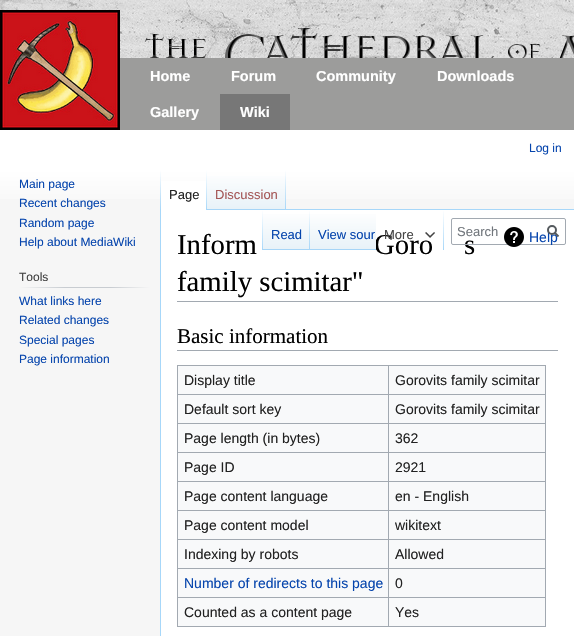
#include "include/core/SkBlurTypes.h"
#include "include/core/SkCanvas.h"
#include "include/core/SkData.h"
#include "include/core/SkFont.h"
#include "include/core/SkFontMgr.h"
#include "include/core/SkImage.h"
#include "include/core/SkMaskFilter.h"
#include "include/core/SkPaint.h"
#include "include/core/SkPathBuilder.h"
#include "include/core/SkTextBlob.h"
#include "include/effects/SkDashPathEffect.h"
#include "include/effects/SkGradientShader.h"
#include "include/utils/SkParsePath.h"

extern sk_sp<SkFontMgr> fontMgr;

static SkFont font(const char* family, int weight, float size, bool italic = false) {
    SkFontStyle style(weight, SkFontStyle::kNormal_Width,
        italic ? SkFontStyle::kItalic_Slant : SkFontStyle::kUpright_Slant);
    SkFont result(fontMgr->matchFamilyStyle(family, style), size);
    result.setSubpixel(true);
    return result;
}

static void drawLabel(SkCanvas* canvas, const char* s, float x, float y, const SkFont& font, SkColor color) {
    SkPaint ink(SkColor4f::FromColor(color));
    ink.setAntiAlias(true);
    canvas->drawString(s, x, y, font, ink);
}

static void fillRect(SkCanvas* canvas, float x, float y, float w, float h, SkColor color) {
    SkPaint ink(SkColor4f::FromColor(color));
    ink.setAntiAlias(true);
    canvas->drawRect(SkRect::MakeXYWH(x, y, w, h), ink);
}

static void drawPhoto(SkCanvas* canvas, const char* path, float x, float y, float w, float h) {
    auto image = SkImages::DeferredFromEncodedData(SkData::MakeFromFileName(path));
    canvas->drawImageRect(image, SkRect::MakeXYWH(x, y, w, h), SkSamplingOptions());
}

static SkPath parsePath(const char* data, bool evenOdd = false) {
    SkPath result = *SkParsePath::FromSVGString(data);
    if (evenOdd) result.setFillType(SkPathFillType::kEvenOdd);
    return result;
}

void draw(SkCanvas* canvas) {
    SkPaint paint;
    paint.setAntiAlias(true);
    canvas->clear(0xFFF6F6F6);
    drawPhoto(canvas, "assets/img1.png", 0, 0, 574, 58);
    drawPhoto(canvas, "assets/img2.png", 0, 10, 120, 120);
    drawPhoto(canvas, "assets/img3.png", 144, 28, 430, 30);
    fillRect(canvas, 120, 58, 454, 72, 0xFF9C9C9B);
    SkFont font1 = font("Liberation Sans", 700, 14.5f);
    drawLabel(canvas, "Home", 150, 81, font1, 0xFFFFFFFF);
    drawLabel(canvas, "Forum", 231, 81, font1, 0xFFFFFFFF);
    drawLabel(canvas, "Community", 316, 81, font1, 0xFFFFFFFF);
    drawLabel(canvas, "Downloads", 437, 81, font1, 0xFFFFFFFF);
    drawLabel(canvas, "Gallery", 150, 117, font1, 0xFFFFFFFF);
    fillRect(canvas, 220, 94, 70, 36, 0xFF777777);
    drawLabel(canvas, "Wiki", 240, 117, font1, 0xFFFFFFFF);
    {
        const SkColor colors[] = {0xFFFFFFFF, 0xFFF6F6F6};
        const float stops[] = {0.5f, 1};
        const SkPoint ends[] = {{287, 130}, {287, 210}};
        paint.setShader(SkGradientShader::MakeLinear(ends, colors, stops, 2, SkTileMode::kClamp));
        paint.setAlpha(255);
    }
    canvas->drawRect(SkRect::MakeXYWH(0, 130, 574, 69), paint);
    SkFont font2 = font("Liberation Sans", 400, 12);
    drawLabel(canvas, "Main page", 19, 188, font2, 0xFF0645AD);
    drawLabel(canvas, "Recent changes", 19, 207, font2, 0xFF0645AD);
    drawLabel(canvas, "Random page", 19, 227, font2, 0xFF0645AD);
    drawLabel(canvas, "Help about MediaWiki", 19, 246, font2, 0xFF0645AD);
    drawLabel(canvas, "Tools", 19, 281, font2, 0xFF444444);
    {
        const SkColor colors[] = {0xFFF6F6F6, 0xFFC8CCD1, 0xFFC8CCD1, 0xFFF6F6F6};
        const float stops[] = {0, 0.35f, 0.7f, 1};
        const SkPoint ends[] = {{19, 288}, {150, 288}};
        paint.setShader(SkGradientShader::MakeLinear(ends, colors, stops, 4, SkTileMode::kClamp));
        paint.setAlpha(255);
    }
    canvas->drawRect(SkRect::MakeXYWH(19, 287, 131, 1), paint);
    drawLabel(canvas, "What links here", 19, 305, font2, 0xFF0645AD);
    drawLabel(canvas, "Related changes", 19, 324, font2, 0xFF0645AD);
    drawLabel(canvas, "Special pages", 19, 344, font2, 0xFF0645AD);
    drawLabel(canvas, "Page information", 19, 363, font2, 0xFF0645AD);
    drawLabel(canvas, "Log in", 529, 152, font2, 0xFF0645AD);
    fillRect(canvas, 160, 209, 1, 427, 0xFFA7D7F9);
    {
        const SkColor colors[] = {0x00A7D7F9, 0xFFA7D7F9};
        const float stops[] = {0, 1};
        const SkPoint ends[] = {{161, 170}, {161, 210}};
        paint.setShader(SkGradientShader::MakeLinear(ends, colors, stops, 2, SkTileMode::kClamp));
        paint.setAlpha(255);
    }
    canvas->drawRect(SkRect::MakeXYWH(160, 170, 1, 40), paint);
    fillRect(canvas, 161, 181, 45, 29, 0xFFFFFFFF);
    {
        const SkColor colors[] = {0xFFFFFFFF, 0xFFA7D7F9};
        const float stops[] = {0, 1};
        const SkPoint ends[] = {{207, 170}, {207, 210}};
        paint.setShader(SkGradientShader::MakeLinear(ends, colors, stops, 2, SkTileMode::kClamp));
        paint.setAlpha(255);
    }
    canvas->drawRect(SkRect::MakeXYWH(206, 170, 1, 40), paint);
    SkFont font3 = font("Liberation Sans", 400, 13);
    drawLabel(canvas, "Page", 169, 199, font3, 0xFF222222);
    {
        const SkColor colors[] = {0xFF77C1F6, 0xFFE8F2F8, 0xFFFFFFFF};
        const float stops[] = {0, 0.03f, 1};
        const SkPoint ends[] = {{247, 210}, {247, 170}};
        paint.setShader(SkGradientShader::MakeLinear(ends, colors, stops, 3, SkTileMode::kClamp));
        paint.setAlpha(255);
    }
    canvas->drawRect(SkRect::MakeXYWH(207, 176, 79, 34), paint);
    {
        const SkColor colors[] = {0x00A7D7F9, 0xFFA7D7F9};
        const float stops[] = {0, 1};
        const SkPoint ends[] = {{286, 170}, {286, 210}};
        paint.setShader(SkGradientShader::MakeLinear(ends, colors, stops, 2, SkTileMode::kClamp));
        paint.setAlpha(255);
    }
    canvas->drawRect(SkRect::MakeXYWH(285, 170, 1, 40), paint);
    drawLabel(canvas, "Discussion", 215, 199, font3, 0xFFA55858);
    fillRect(canvas, 161, 210, 413, 426, 0xFFFFFFFF);
    {
        const SkColor colors[] = {0x00A7D7F9, 0xFFA7D7F9};
        const float stops[] = {0, 1};
        const SkPoint ends[] = {{263, 210}, {263, 250}};
        paint.setShader(SkGradientShader::MakeLinear(ends, colors, stops, 2, SkTileMode::kClamp));
        paint.setAlpha(255);
    }
    canvas->drawRect(SkRect::MakeXYWH(262, 210, 1, 40), paint);
    {
        const SkColor colors[] = {0xFF77C1F6, 0xFFE8F2F8, 0xFFFFFFFF};
        const float stops[] = {0, 0.03f, 1};
        const SkPoint ends[] = {{287, 250}, {287, 210}};
        paint.setShader(SkGradientShader::MakeLinear(ends, colors, stops, 3, SkTileMode::kClamp));
        paint.setAlpha(255);
    }
    canvas->drawRect(SkRect::MakeXYWH(263, 214, 47, 36), paint);
    {
        const SkColor colors[] = {0x00A7D7F9, 0xFFA7D7F9};
        const float stops[] = {0, 1};
        const SkPoint ends[] = {{310, 210}, {310, 250}};
        paint.setShader(SkGradientShader::MakeLinear(ends, colors, stops, 2, SkTileMode::kClamp));
        paint.setAlpha(255);
    }
    canvas->drawRect(SkRect::MakeXYWH(309, 210, 1, 40), paint);
    drawLabel(canvas, "Read", 271, 239, font3, 0xFF0645AD);
    SkFont font4 = font("Liberation Serif", 400, 28.75f);
    drawLabel(canvas, "Goro", 374, 254, font4, 0xFF000000);
    {
        const SkColor colors[] = {0xFF77C1F6, 0xFFE8F2F8, 0xFFFFFFFF};
        const float stops[] = {0, 0.03f, 1};
        const SkPoint ends[] = {{343, 250}, {343, 210}};
        paint.setShader(SkGradientShader::MakeLinear(ends, colors, stops, 3, SkTileMode::kClamp));
        paint.setAlpha(255);
    }
    canvas->drawRect(SkRect::MakeXYWH(310, 214, 66, 36), paint);
    drawLabel(canvas, "View sour", 318, 239, font3, 0xFF0645AD);
    {
        const SkColor colors[] = {0x00A7D7F9, 0xFFA7D7F9};
        const float stops[] = {0, 1};
        const SkPoint ends[] = {{444, 210}, {444, 250}};
        paint.setShader(SkGradientShader::MakeLinear(ends, colors, stops, 2, SkTileMode::kClamp));
        paint.setAlpha(255);
    }
    canvas->drawRect(SkRect::MakeXYWH(443, 210, 1, 40), paint);
    drawLabel(canvas, "More", 384, 239, font3, 0xFF444444);
    drawPhoto(canvas, "assets/img4.png", 425, 232, 10, 6);
    drawLabel(canvas, "s", 464, 254, font4, 0xFF000000);
    paint.setStroke(true);
    paint.setStrokeWidth(1);
    paint.setShader(nullptr);
    paint.setColor(0xFFA2A9B1);
    canvas->drawRoundRect(SkRect::MakeXYWH(451.5f, 218.5f, 114, 26), 1.5f, 1.5f, paint);
    drawLabel(canvas, "Search", 457, 236, font3, 0xFF72777D);
    SkFont font5 = font("Liberation Sans", 400, 14);
    drawLabel(canvas, "Help", 529, 242, font5, 0xFF0645AD);
    paint.setStrokeWidth(2);
    paint.setColor(0xFF54595D);
    canvas->drawPath(parsePath("M558.5 236.5L554.5 232.5"), paint);
    canvas->drawCircle(552, 230, 4, paint);
    fillRect(canvas, 286, 209, 288, 1, 0xFFA7D7F9);
    fillRect(canvas, 177, 301, 381, 1, 0xFFA2A9B1);
    drawLabel(canvas, "Inform", 177, 254, font4, 0xFF000000);
    drawLabel(canvas, "family scimitar\"", 177, 291, font4, 0xFF000000);
    drawPhoto(canvas, "assets/img5.png", 504, 227, 20, 20);
    fillRect(canvas, 177, 350, 381, 1, 0xFFA2A9B1);
    SkFont font6 = font("Liberation Serif", 400, 21);
    drawLabel(canvas, "Basic information", 177, 343, font6, 0xFF000000);
    fillRect(canvas, 178, 366, 367, 260, 0xFFF8F9FA);
    fillRect(canvas, 177, 365, 369, 1, 0xFFA2A9B1);
    fillRect(canvas, 545, 365, 1, 262, 0xFFA2A9B1);
    fillRect(canvas, 177, 626, 369, 1, 0xFFA2A9B1);
    fillRect(canvas, 177, 365, 1, 262, 0xFFA2A9B1);
    drawLabel(canvas, "Display title", 184, 385, font5, 0xFF222222);
    fillRect(canvas, 388, 394, 158, 1, 0xFFA2A9B1);
    fillRect(canvas, 388, 423, 158, 1, 0xFFA2A9B1);
    fillRect(canvas, 388, 452, 158, 1, 0xFFA2A9B1);
    fillRect(canvas, 388, 481, 158, 1, 0xFFA2A9B1);
    fillRect(canvas, 388, 510, 158, 1, 0xFFA2A9B1);
    fillRect(canvas, 388, 539, 158, 1, 0xFFA2A9B1);
    fillRect(canvas, 388, 568, 158, 1, 0xFFA2A9B1);
    fillRect(canvas, 388, 597, 158, 1, 0xFFA2A9B1);
    fillRect(canvas, 388, 597, 1, 30, 0xFFA2A9B1);
    fillRect(canvas, 177, 597, 212, 1, 0xFFA2A9B1);
    fillRect(canvas, 388, 568, 1, 30, 0xFFA2A9B1);
    fillRect(canvas, 177, 568, 212, 1, 0xFFA2A9B1);
    fillRect(canvas, 388, 539, 1, 30, 0xFFA2A9B1);
    fillRect(canvas, 177, 539, 212, 1, 0xFFA2A9B1);
    fillRect(canvas, 388, 510, 1, 30, 0xFFA2A9B1);
    fillRect(canvas, 177, 510, 212, 1, 0xFFA2A9B1);
    fillRect(canvas, 388, 481, 1, 30, 0xFFA2A9B1);
    fillRect(canvas, 177, 481, 212, 1, 0xFFA2A9B1);
    fillRect(canvas, 388, 452, 1, 30, 0xFFA2A9B1);
    fillRect(canvas, 177, 452, 212, 1, 0xFFA2A9B1);
    fillRect(canvas, 388, 423, 1, 30, 0xFFA2A9B1);
    fillRect(canvas, 177, 423, 212, 1, 0xFFA2A9B1);
    fillRect(canvas, 388, 394, 1, 30, 0xFFA2A9B1);
    fillRect(canvas, 177, 394, 212, 1, 0xFFA2A9B1);
    fillRect(canvas, 388, 365, 1, 30, 0xFFA2A9B1);
    drawLabel(canvas, "Gorovits family scimitar", 395, 385, font5, 0xFF222222);
    drawLabel(canvas, "Default sort key", 184, 414, font5, 0xFF222222);
    drawLabel(canvas, "Gorovits family scimitar", 395, 414, font5, 0xFF222222);
    drawLabel(canvas, "Page length (in bytes)", 184, 443, font5, 0xFF222222);
    drawLabel(canvas, "362", 395, 443, font5, 0xFF222222);
    drawLabel(canvas, "Page ID", 184, 472, font5, 0xFF222222);
    drawLabel(canvas, "2921", 395, 472, font5, 0xFF222222);
    drawLabel(canvas, "Page content language", 184, 501, font5, 0xFF222222);
    drawLabel(canvas, "en - English", 395, 501, font5, 0xFF222222);
    drawLabel(canvas, "Page content model", 184, 530, font5, 0xFF222222);
    drawLabel(canvas, "wikitext", 395, 530, font5, 0xFF222222);
    drawLabel(canvas, "Indexing by robots", 184, 559, font5, 0xFF222222);
    drawLabel(canvas, "Allowed", 395, 559, font5, 0xFF222222);
    drawLabel(canvas, "Number of redirects to this page", 184, 588, font5, 0xFF0645AD);
    drawLabel(canvas, "0", 395, 588, font5, 0xFF222222);
    drawLabel(canvas, "Counted as a content page", 184, 617, font5, 0xFF222222);
    drawLabel(canvas, "Yes", 395, 617, font5, 0xFF222222);
}
